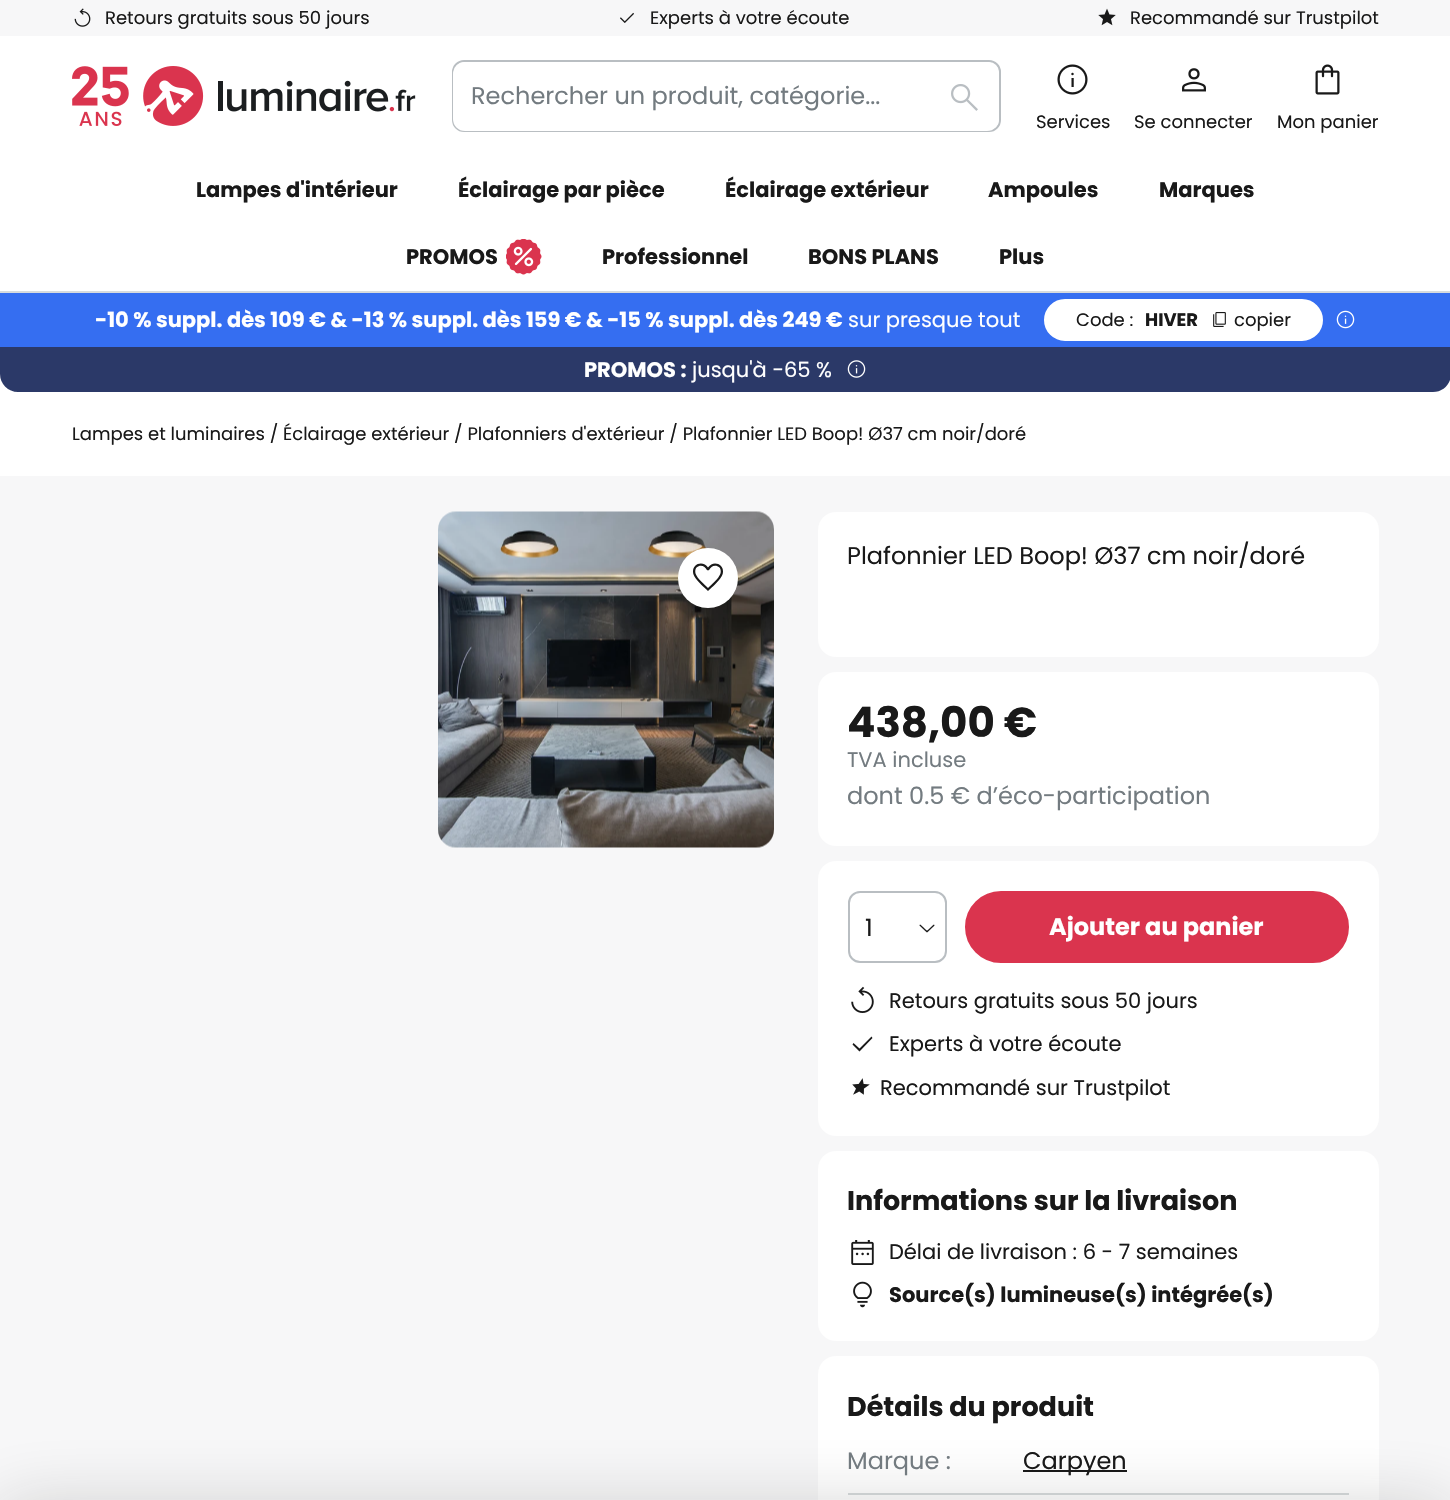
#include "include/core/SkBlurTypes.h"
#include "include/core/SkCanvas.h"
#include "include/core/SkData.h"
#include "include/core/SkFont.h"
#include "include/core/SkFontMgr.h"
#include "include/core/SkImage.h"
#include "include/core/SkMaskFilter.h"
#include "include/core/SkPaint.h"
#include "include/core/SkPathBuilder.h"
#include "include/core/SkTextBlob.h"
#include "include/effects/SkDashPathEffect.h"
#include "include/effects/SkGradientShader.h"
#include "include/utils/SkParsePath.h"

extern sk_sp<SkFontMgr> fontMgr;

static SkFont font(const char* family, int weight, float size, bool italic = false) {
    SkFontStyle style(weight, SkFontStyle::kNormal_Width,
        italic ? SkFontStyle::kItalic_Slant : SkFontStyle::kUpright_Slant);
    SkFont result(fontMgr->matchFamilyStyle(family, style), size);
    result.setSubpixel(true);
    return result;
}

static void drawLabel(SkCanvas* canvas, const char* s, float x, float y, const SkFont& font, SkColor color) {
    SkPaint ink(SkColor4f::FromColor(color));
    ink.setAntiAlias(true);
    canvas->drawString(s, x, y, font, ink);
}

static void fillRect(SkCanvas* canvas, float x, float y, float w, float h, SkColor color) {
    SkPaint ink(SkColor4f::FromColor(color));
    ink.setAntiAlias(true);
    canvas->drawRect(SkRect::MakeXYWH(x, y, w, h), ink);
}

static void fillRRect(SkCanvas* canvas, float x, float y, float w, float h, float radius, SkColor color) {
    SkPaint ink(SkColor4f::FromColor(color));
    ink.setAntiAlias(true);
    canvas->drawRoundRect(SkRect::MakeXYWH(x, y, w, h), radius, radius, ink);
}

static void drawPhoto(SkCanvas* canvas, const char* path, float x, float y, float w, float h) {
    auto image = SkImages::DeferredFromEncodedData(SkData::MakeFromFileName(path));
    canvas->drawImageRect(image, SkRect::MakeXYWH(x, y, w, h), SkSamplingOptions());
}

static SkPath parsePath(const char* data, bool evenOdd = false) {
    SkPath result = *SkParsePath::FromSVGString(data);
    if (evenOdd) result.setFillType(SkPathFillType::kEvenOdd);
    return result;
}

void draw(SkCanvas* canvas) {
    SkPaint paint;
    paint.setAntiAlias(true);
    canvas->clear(0xFFFFFFFF);
    fillRect(canvas, 0, 0, 1450, 36, 0xFFF7F7F8);
    drawPhoto(canvas, "assets/img1.png", 74, 8, 17, 19);
    SkFont font1 = font("Poppins", 400, 18);
    drawLabel(canvas, "Retours gratuits sous 50 jours", 105, 24, font1, 0xFF191919);
    drawPhoto(canvas, "assets/img2.png", 620, 12, 14, 11);
    drawLabel(canvas, "Experts à votre écoute", 650, 24, font1, 0xFF191919);
    drawPhoto(canvas, "assets/img3.png", 1098, 8, 18, 18);
    drawLabel(canvas, "Recommandé sur Trustpilot", 1130, 24, font1, 0xFF191919);
    drawPhoto(canvas, "assets/img4.png", 72, 66, 344, 60);
    paint.setStroke(true);
    paint.setStrokeWidth(2);
    paint.setColor(0xFFB9BEC2);
    canvas->drawRoundRect(SkRect::MakeXYWH(453, 61, 547, 70), 11, 11, paint);
    fillRRect(canvas, 453, 62, 546, 69, 12, 0xFFFFFFFF);
    SkFont font2 = font("Poppins", 400, 24);
    drawLabel(canvas, "Rechercher un produit, catégorie...", 471, 104, font2, 0xFF737B80);
    drawPhoto(canvas, "assets/img5.png", 951, 84, 27, 27);
    drawPhoto(canvas, "assets/img6.png", 1057, 64, 31, 31);
    drawLabel(canvas, "Services", 1036, 128, font1, 0xFF191919);
    drawPhoto(canvas, "assets/img7.png", 1182, 68, 24, 24);
    drawLabel(canvas, "Se connecter", 1134, 128, font1, 0xFF191919);
    drawPhoto(canvas, "assets/img8.png", 1315, 64, 25, 31);
    drawLabel(canvas, "Mon panier", 1277, 128, font1, 0xFF191919);
    fillRect(canvas, 0, 291, 1450, 2, 0xFFD7DBDD);
    SkFont font3 = font("Poppins", 700, 21);
    drawLabel(canvas, "Lampes d'intérieur", 196, 197, font3, 0xFF191919);
    drawLabel(canvas, "Éclairage par pièce", 458, 197, font3, 0xFF191919);
    drawLabel(canvas, "Éclairage extérieur", 725, 197, font3, 0xFF191919);
    drawLabel(canvas, "Ampoules", 988, 197, font3, 0xFF191919);
    drawLabel(canvas, "Marques", 1159, 197, font3, 0xFF191919);
    drawLabel(canvas, "PROMOS", 406, 264, font3, 0xFF191919);
    drawPhoto(canvas, "assets/img9.png", 506, 239, 36, 36);
    drawLabel(canvas, "Professionnel", 602, 264, font3, 0xFF191919);
    drawLabel(canvas, "BONS PLANS", 808, 264, font3, 0xFF191919);
    drawLabel(canvas, "Plus", 999, 264, font3, 0xFF191919);
    fillRect(canvas, 0, 293, 1450, 54, 0xFF356EF1);
    drawLabel(canvas, "-10 % suppl. dès 109 € & -13 % suppl. dès 159 € & -15 % suppl. dès 249 €", 95, 327, font3, 0xFFFFFFFF);
    SkFont font4 = font("Poppins", 400, 21);
    drawLabel(canvas, "sur presque tout", 848, 327, font4, 0xFFFFFFFF);
    paint.setStroke(false);
    paint.setColor(0xFFFFFFFF);
    canvas->drawRoundRect(SkRect::MakeXYWH(1045, 300, 277, 40), 20, 20, paint);
    paint.setStroke(true);
    canvas->drawRoundRect(SkRect::MakeXYWH(1045, 300, 277, 40), 20, 20, paint);
    drawLabel(canvas, "Code :", 1076, 326, font1, 0xFF191919);
    SkFont font5 = font("Poppins", 700, 18);
    drawLabel(canvas, "HIVER", 1145, 326, font5, 0xFF191919);
    drawPhoto(canvas, "assets/img10.png", 1213, 312, 13, 15);
    drawLabel(canvas, "copier", 1234, 326, font1, 0xFF191919);
    drawPhoto(canvas, "assets/img11.png", 1336, 310, 19, 19);
    paint.setStroke(false);
    paint.setColor(0xFF2B3968);
    canvas->drawPath(parsePath("M0 347H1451V374C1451 384 1443 392 1433 392H18C8 392 0 384 0 374Z"), paint);
    drawLabel(canvas, "PROMOS :", 584, 377, font3, 0xFFFFFFFF);
    drawLabel(canvas, "jusqu'à -65 %", 692, 377, font4, 0xFFFFFFFF);
    drawPhoto(canvas, "assets/img12.png", 847, 360, 19, 18);
    drawLabel(canvas, "Lampes et luminaires / Éclairage extérieur / Plafonniers d'extérieur / Plafonnier LED Boop! Ø37 cm noir/doré", 72, 440, font1, 0xFF191919);
    fillRect(canvas, 0, 476, 1450, 1024, 0xFFF7F7F8);
    drawPhoto(canvas, "assets/img13.png", 438, 511, 336, 337);
    paint.setColor(0xFFFFFFFF);
    canvas->drawCircle(708, 578, 30, paint);
    drawPhoto(canvas, "assets/img14.png", 693, 563, 30, 28);
    fillRRect(canvas, 818, 512, 561, 145, 18, 0xFFFFFFFF);
    drawLabel(canvas, "Plafonnier LED Boop! Ø37 cm noir/doré", 847, 564, font2, 0xFF191919);
    fillRRect(canvas, 818, 672, 561, 174, 18, 0xFFFFFFFF);
    SkFont font6 = font("Poppins", 700, 42);
    drawLabel(canvas, "438,00 €", 847, 737, font6, 0xFF191919);
    drawLabel(canvas, "TVA incluse", 847, 767, font4, 0xFF737B80);
    drawLabel(canvas, "dont 0.5 € d’éco-participation", 847, 804, font2, 0xFF737B80);
    fillRRect(canvas, 818, 861, 561, 275, 18, 0xFFFFFFFF);
    paint.setStroke(true);
    paint.setColor(0xFFB9BEC2);
    canvas->drawRoundRect(SkRect::MakeXYWH(849, 892, 97, 70), 11, 11, paint);
    drawLabel(canvas, "1", 865, 936, font2, 0xFF191919);
    drawPhoto(canvas, "assets/img15.png", 919, 924, 16, 9);
    paint.setStroke(false);
    paint.setColor(0xFFDA344E);
    canvas->drawRoundRect(SkRect::MakeXYWH(966, 892, 382, 70), 35, 35, paint);
    paint.setStroke(true);
    canvas->drawRoundRect(SkRect::MakeXYWH(966, 892, 382, 70), 35, 35, paint);
    SkFont font7 = font("Poppins", 700, 24);
    drawLabel(canvas, "Ajouter au panier", 1049, 935, font7, 0xFFFFFFFF);
    fillRRect(canvas, 818, 1356, 561, 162, 18, 0xFFFFFFFF);
    fillRect(canvas, 848, 1493, 501, 2, 0xFFD7DBDD);
    fillRect(canvas, 1023, 1470, 104, 2, 0xFF191919);
    paint.setStroke(false);
    paint.setColor(0x33191919);
    paint.setMaskFilter(SkMaskFilter::MakeBlur(kNormal_SkBlurStyle, 36));
    canvas->drawRect(SkRect::MakeXYWH(0, 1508, 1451, 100), paint);
    paint.setMaskFilter(nullptr);
    drawPhoto(canvas, "assets/img16.png", 851, 986, 23, 27);
    drawLabel(canvas, "Retours gratuits sous 50 jours", 889, 1008, font4, 0xFF191919);
    paint.setColor(0xFF191919);
    canvas->drawPath(parsePath("M859.5 1051.5L852.5 1044.5L853.5 1043L859.5 1048.5L871.5 1036.5L872.5 1038Z"), paint);
    drawLabel(canvas, "Experts à votre écoute", 889, 1051, font4, 0xFF191919);
    drawPhoto(canvas, "assets/img17.png", 852, 1078, 18, 17);
    drawLabel(canvas, "Recommandé sur Trustpilot", 880, 1095, font4, 0xFF191919);
    fillRRect(canvas, 818, 1151, 561, 190, 18, 0xFFFFFFFF);
    SkFont font8 = font("Poppins", 700, 27);
    drawLabel(canvas, "Informations sur la livraison", 847, 1210, font8, 0xFF191919);
    drawPhoto(canvas, "assets/img18.png", 851, 1240, 23, 25);
    drawLabel(canvas, "Délai de livraison : 6 - 7 semaines", 889, 1259, font4, 0xFF191919);
    drawPhoto(canvas, "assets/img19.png", 853, 1281, 19, 27);
    drawLabel(canvas, "Source(s) lumineuse(s) intégrée(s)", 889, 1302, font3, 0xFF191919);
    drawLabel(canvas, "Détails du produit", 847, 1416, font8, 0xFF191919);
    drawLabel(canvas, "Marque :", 847, 1469, font2, 0xFF737B80);
    drawLabel(canvas, "Carpyen", 1023, 1469, font2, 0xFF191919);
}
